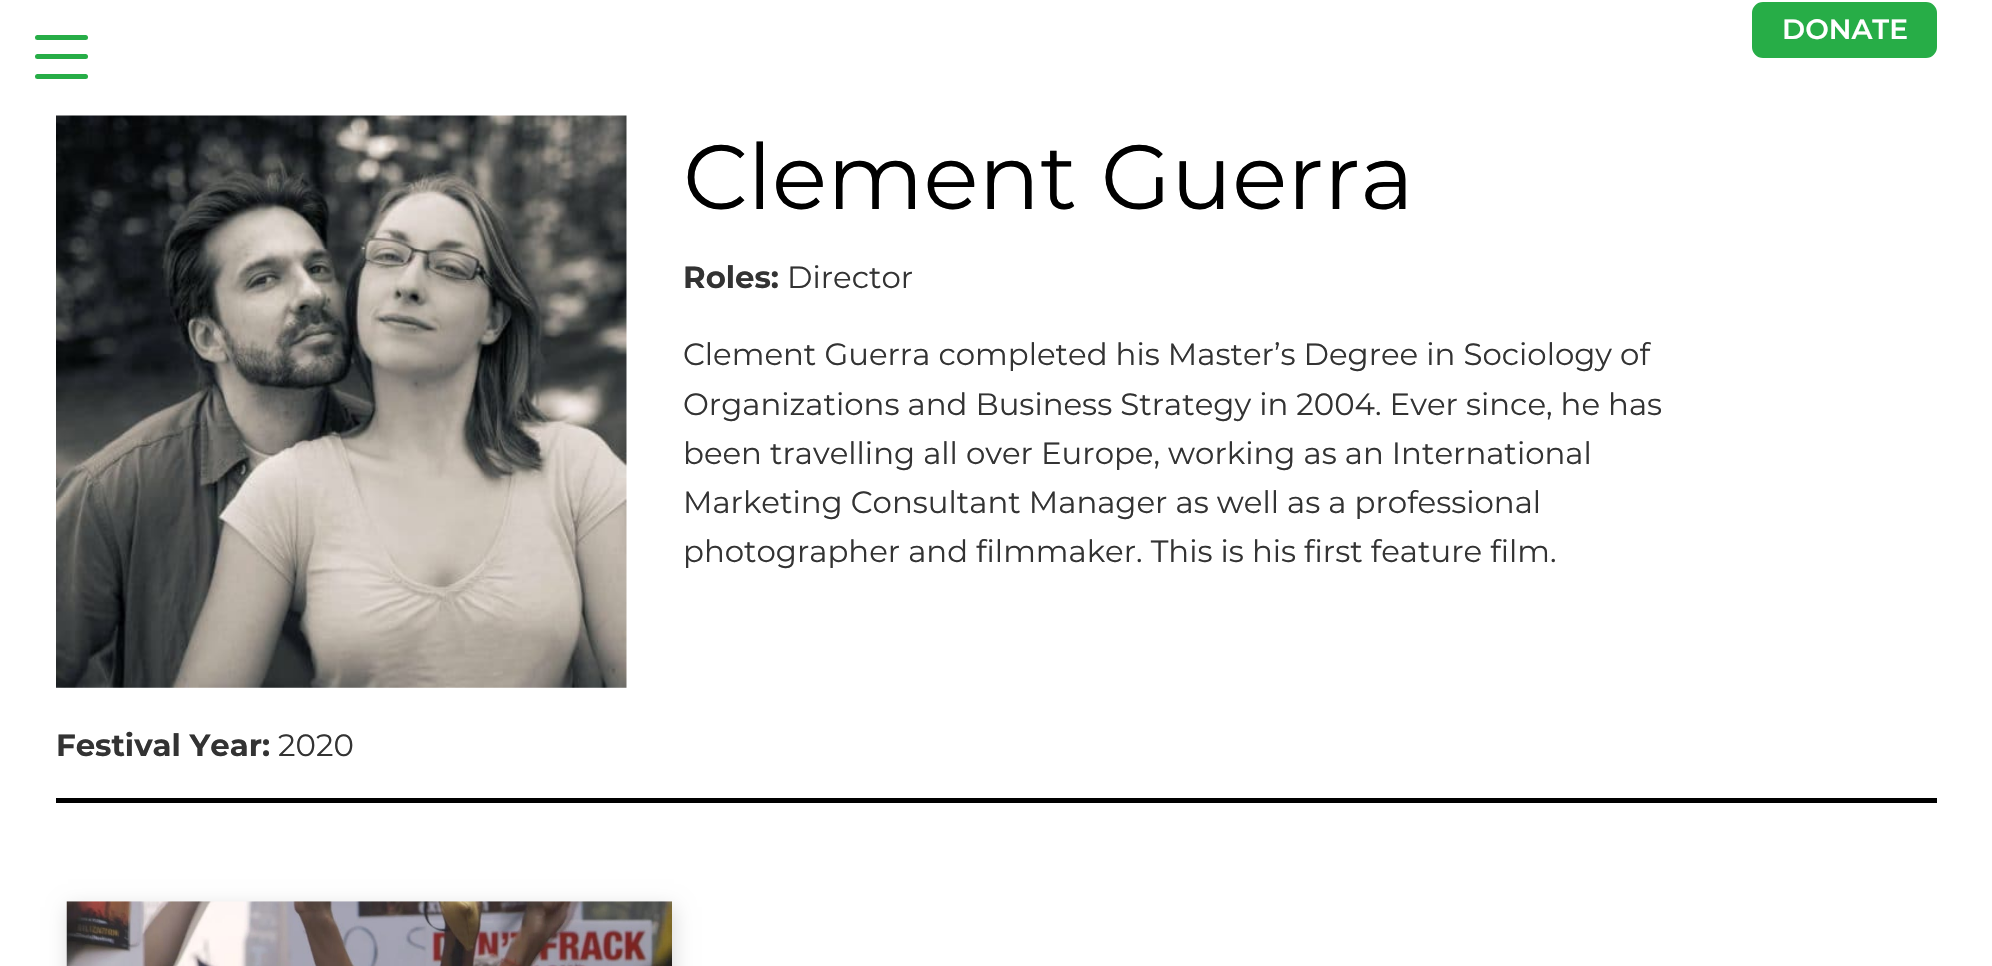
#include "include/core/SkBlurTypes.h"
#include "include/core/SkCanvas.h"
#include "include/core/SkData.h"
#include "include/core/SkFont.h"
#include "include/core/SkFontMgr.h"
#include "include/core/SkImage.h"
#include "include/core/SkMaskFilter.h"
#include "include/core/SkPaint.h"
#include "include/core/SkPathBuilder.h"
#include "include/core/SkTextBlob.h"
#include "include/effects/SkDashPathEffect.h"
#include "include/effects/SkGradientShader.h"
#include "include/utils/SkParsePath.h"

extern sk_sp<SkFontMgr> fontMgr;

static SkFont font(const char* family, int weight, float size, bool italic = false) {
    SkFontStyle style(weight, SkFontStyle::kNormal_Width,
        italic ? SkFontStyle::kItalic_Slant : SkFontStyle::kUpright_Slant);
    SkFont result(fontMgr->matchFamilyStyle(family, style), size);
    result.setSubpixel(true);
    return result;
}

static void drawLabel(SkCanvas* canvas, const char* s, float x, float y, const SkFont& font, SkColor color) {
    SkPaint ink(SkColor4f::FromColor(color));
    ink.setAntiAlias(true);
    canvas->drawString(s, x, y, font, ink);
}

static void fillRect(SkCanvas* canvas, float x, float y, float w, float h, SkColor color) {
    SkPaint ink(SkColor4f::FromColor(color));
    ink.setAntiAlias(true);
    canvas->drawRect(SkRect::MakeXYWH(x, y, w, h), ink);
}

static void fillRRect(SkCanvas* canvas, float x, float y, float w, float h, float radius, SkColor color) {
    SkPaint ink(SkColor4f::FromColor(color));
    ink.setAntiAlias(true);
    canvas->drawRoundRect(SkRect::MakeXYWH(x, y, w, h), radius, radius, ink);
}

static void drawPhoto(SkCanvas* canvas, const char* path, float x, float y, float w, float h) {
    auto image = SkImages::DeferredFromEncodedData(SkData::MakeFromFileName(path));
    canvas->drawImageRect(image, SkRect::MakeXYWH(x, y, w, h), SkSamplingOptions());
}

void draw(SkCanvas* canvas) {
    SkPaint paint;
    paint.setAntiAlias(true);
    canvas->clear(0xFFFFFFFF);
    paint.setColor(0xFF27AD47);
    canvas->drawRoundRect(SkRect::MakeXYWH(1753, 3, 183, 54), 10, 10, paint);
    paint.setStroke(true);
    paint.setStrokeWidth(2);
    canvas->drawRoundRect(SkRect::MakeXYWH(1753, 3, 183, 54), 10, 10, paint);
    SkFont font1 = font("Montserrat", 600, 28);
    drawLabel(canvas, "DONATE", 1782, 39, font1, 0xFFFFFFFF);
    fillRRect(canvas, 35, 35, 53, 5, 2.5f, 0xFF27AD47);
    fillRRect(canvas, 35, 54, 53, 5, 2.5f, 0xFF27AD47);
    fillRRect(canvas, 35, 74, 53, 5, 2.5f, 0xFF27AD47);
    SkFont font2 = font("Montserrat", 400, 91);
    drawLabel(canvas, "Clement Guerra", 683, 209, font2, 0xFF000000);
    SkFont font3 = font("Montserrat", 700, 30.8f);
    drawLabel(canvas, "Roles:", 683, 288, font3, 0xFF333333);
    SkFont font4 = font("Montserrat", 400, 30.8f);
    drawLabel(canvas, "Director", 787, 288, font4, 0xFF333333);
    drawLabel(canvas, "Clement Guerra completed his Master’s Degree in Sociology of", 683, 365, font4, 0xFF333333);
    drawLabel(canvas, "Organizations and Business Strategy in 2004. Ever since, he has", 683, 415, font4, 0xFF333333);
    drawLabel(canvas, "been travelling all over Europe, working as an International", 683, 464, font4, 0xFF333333);
    drawLabel(canvas, "Marketing Consultant Manager as well as a professional", 683, 513, font4, 0xFF333333);
    drawLabel(canvas, "photographer and filmmaker. This is his first feature film.", 683, 562, font4, 0xFF333333);
    drawPhoto(canvas, "assets/img1.png", 56, 115, 571, 573);
    drawLabel(canvas, "Festival Year:", 56, 756, font3, 0xFF333333);
    drawLabel(canvas, "2020", 278, 756, font4, 0xFF333333);
    fillRect(canvas, 56, 798, 1881, 5, 0xFF000000);
    paint.setStroke(false);
    paint.setColor(0x26000000);
    paint.setMaskFilter(SkMaskFilter::MakeBlur(kNormal_SkBlurStyle, 9.5f));
    canvas->drawRect(SkRect::MakeXYWH(68, 907, 606, 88), paint);
    paint.setMaskFilter(nullptr);
    drawPhoto(canvas, "assets/img2.png", 66, 901, 606, 65);
}
